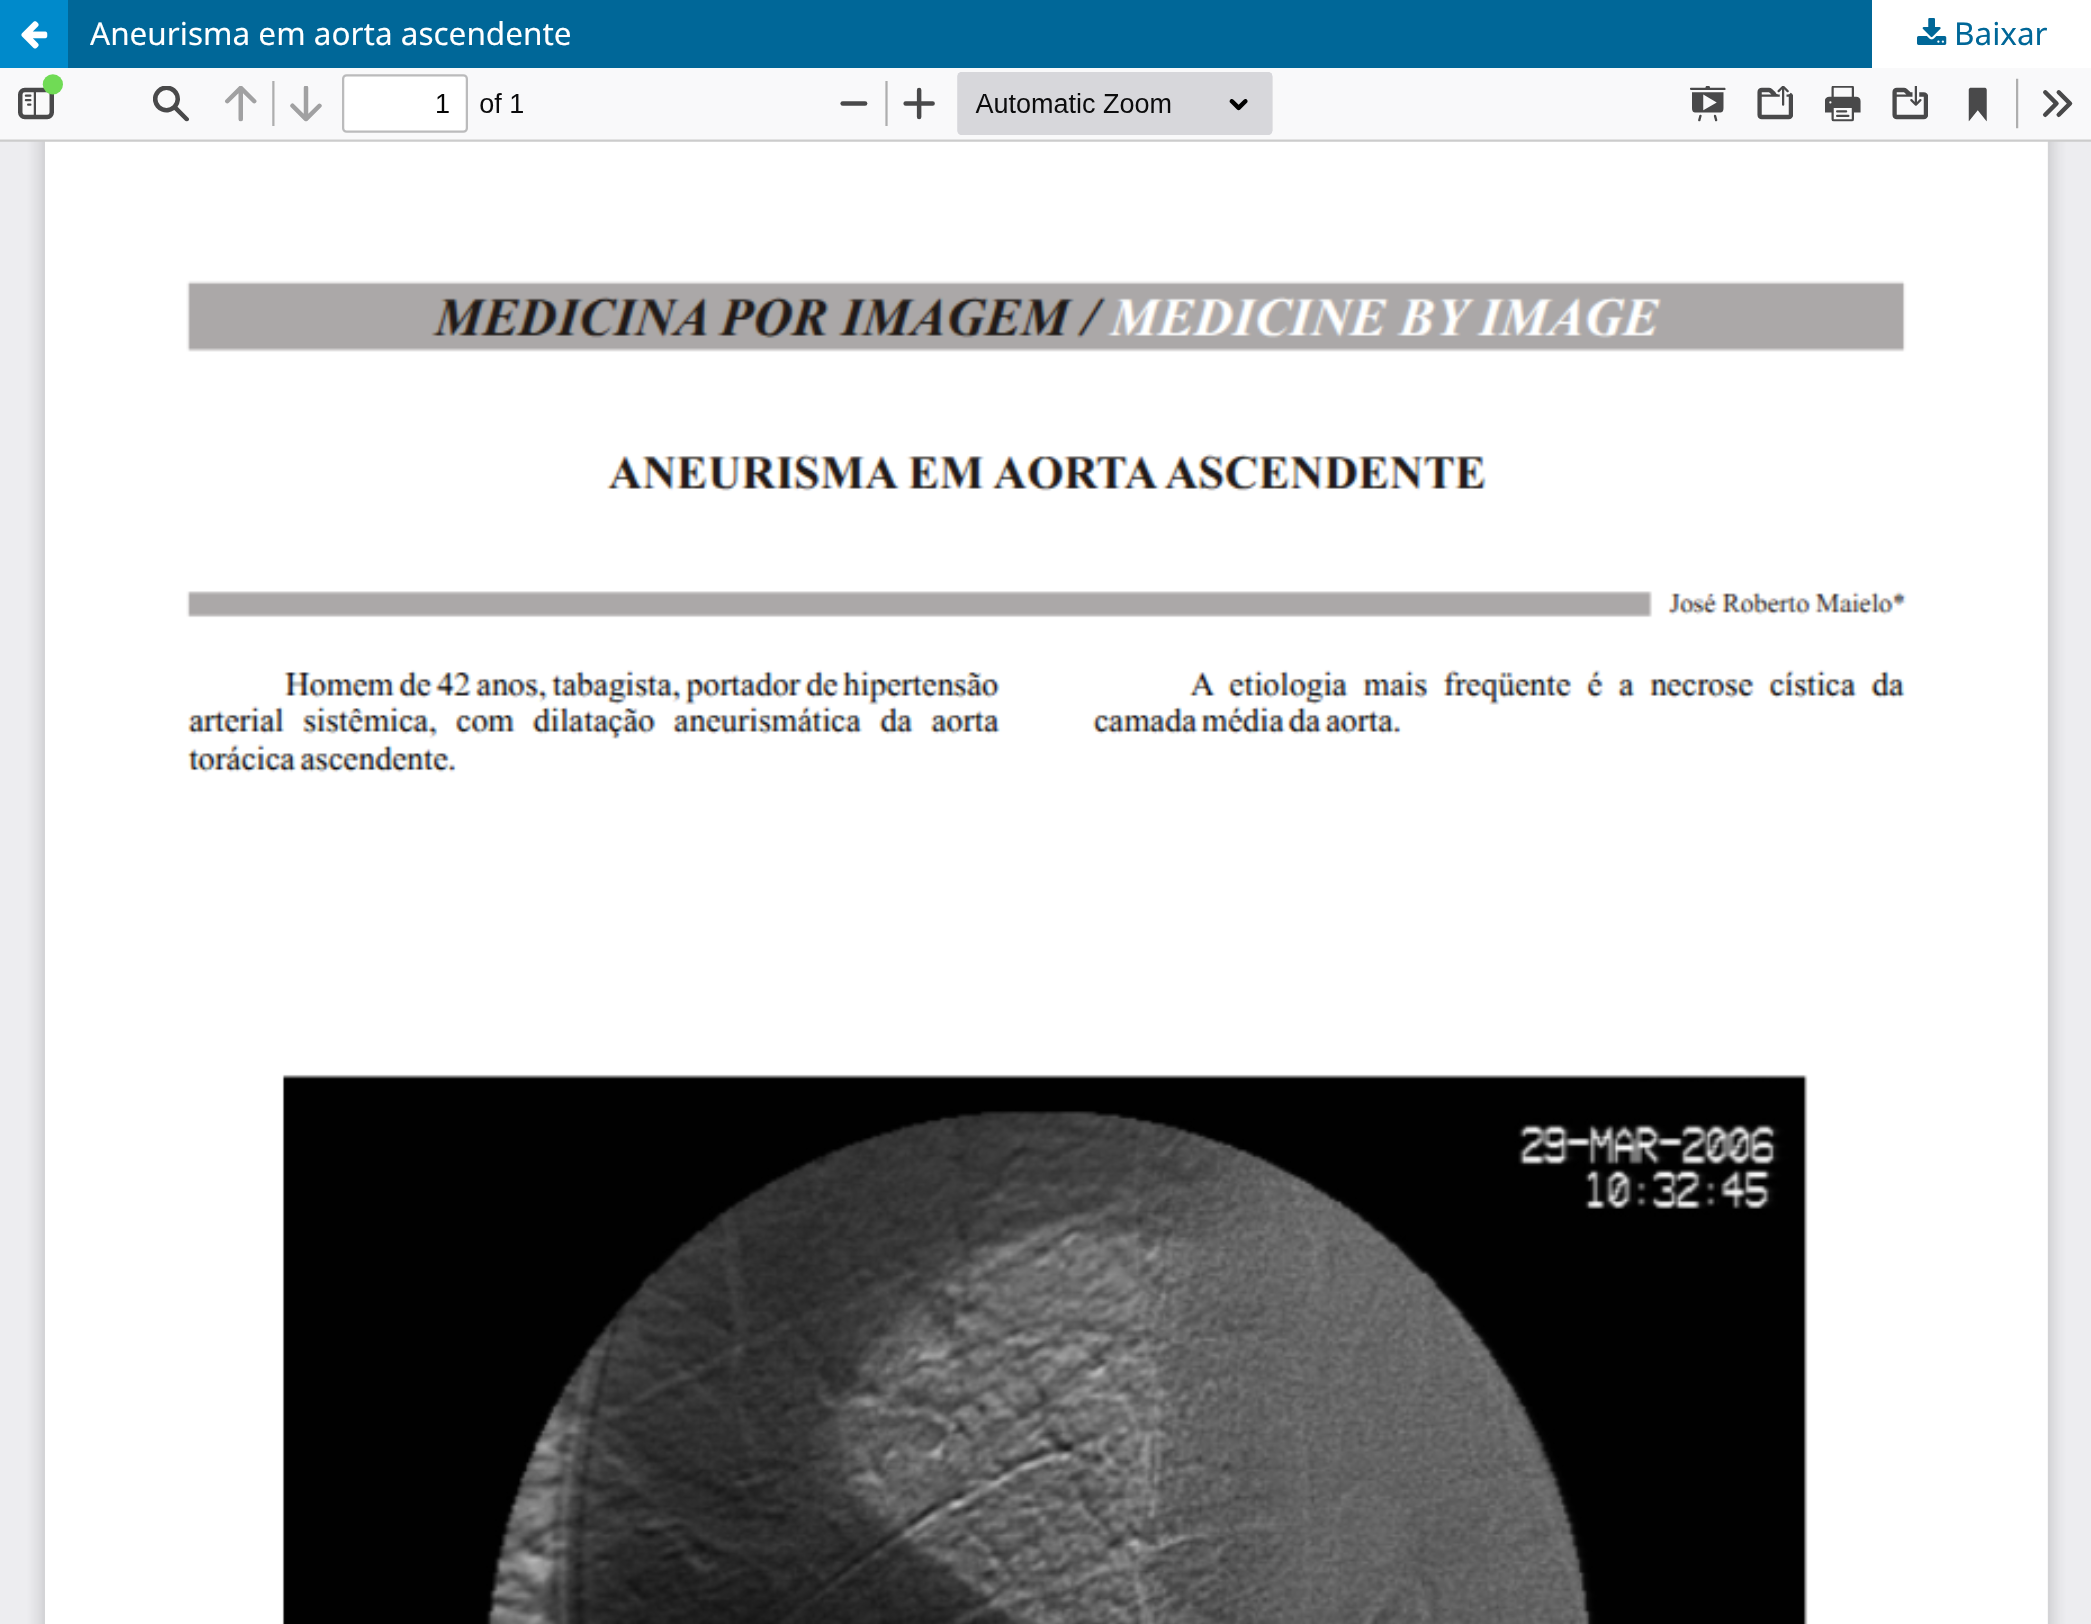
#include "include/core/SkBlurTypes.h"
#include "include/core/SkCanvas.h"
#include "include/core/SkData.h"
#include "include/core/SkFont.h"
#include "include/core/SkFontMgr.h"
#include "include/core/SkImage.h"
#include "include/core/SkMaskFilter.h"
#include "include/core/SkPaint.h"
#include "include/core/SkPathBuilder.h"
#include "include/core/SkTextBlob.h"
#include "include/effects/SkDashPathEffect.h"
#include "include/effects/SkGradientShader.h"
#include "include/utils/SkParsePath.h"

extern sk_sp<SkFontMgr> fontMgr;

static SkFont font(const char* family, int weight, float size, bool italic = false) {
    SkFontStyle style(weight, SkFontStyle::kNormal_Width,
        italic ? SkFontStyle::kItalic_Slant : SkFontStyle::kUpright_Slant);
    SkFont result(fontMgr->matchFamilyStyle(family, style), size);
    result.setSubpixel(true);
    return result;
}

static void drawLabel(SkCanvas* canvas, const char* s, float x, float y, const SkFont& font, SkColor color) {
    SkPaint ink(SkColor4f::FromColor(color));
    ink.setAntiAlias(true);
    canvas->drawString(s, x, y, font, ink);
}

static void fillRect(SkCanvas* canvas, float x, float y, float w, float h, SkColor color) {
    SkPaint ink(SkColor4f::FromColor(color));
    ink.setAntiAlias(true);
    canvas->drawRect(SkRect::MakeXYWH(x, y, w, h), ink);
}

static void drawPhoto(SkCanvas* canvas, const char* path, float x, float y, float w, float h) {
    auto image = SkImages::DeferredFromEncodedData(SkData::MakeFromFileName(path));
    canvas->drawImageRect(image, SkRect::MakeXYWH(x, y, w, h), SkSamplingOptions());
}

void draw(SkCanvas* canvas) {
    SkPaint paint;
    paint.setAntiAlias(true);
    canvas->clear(0xFFFFFFFF);
    fillRect(canvas, 68, 0, 1804, 68, 0xFF006798);
    fillRect(canvas, 0, 0, 68, 68, 0xFF008ACB);
    drawPhoto(canvas, "assets/img1.png", 21, 21, 27, 28);
    SkFont font1 = font("Noto Sans", 400, 31.5f);
    drawLabel(canvas, "Aneurisma em aorta ascendente", 90, 45, font1, 0xFFFFFFFF);
    drawPhoto(canvas, "assets/img2.png", 1917, 18, 30, 27);
    drawLabel(canvas, "Baixar", 1954, 45, font1, 0xFF006798);
    drawPhoto(canvas, "assets/img3.png", 0, 68, 2091, 1556);
}
